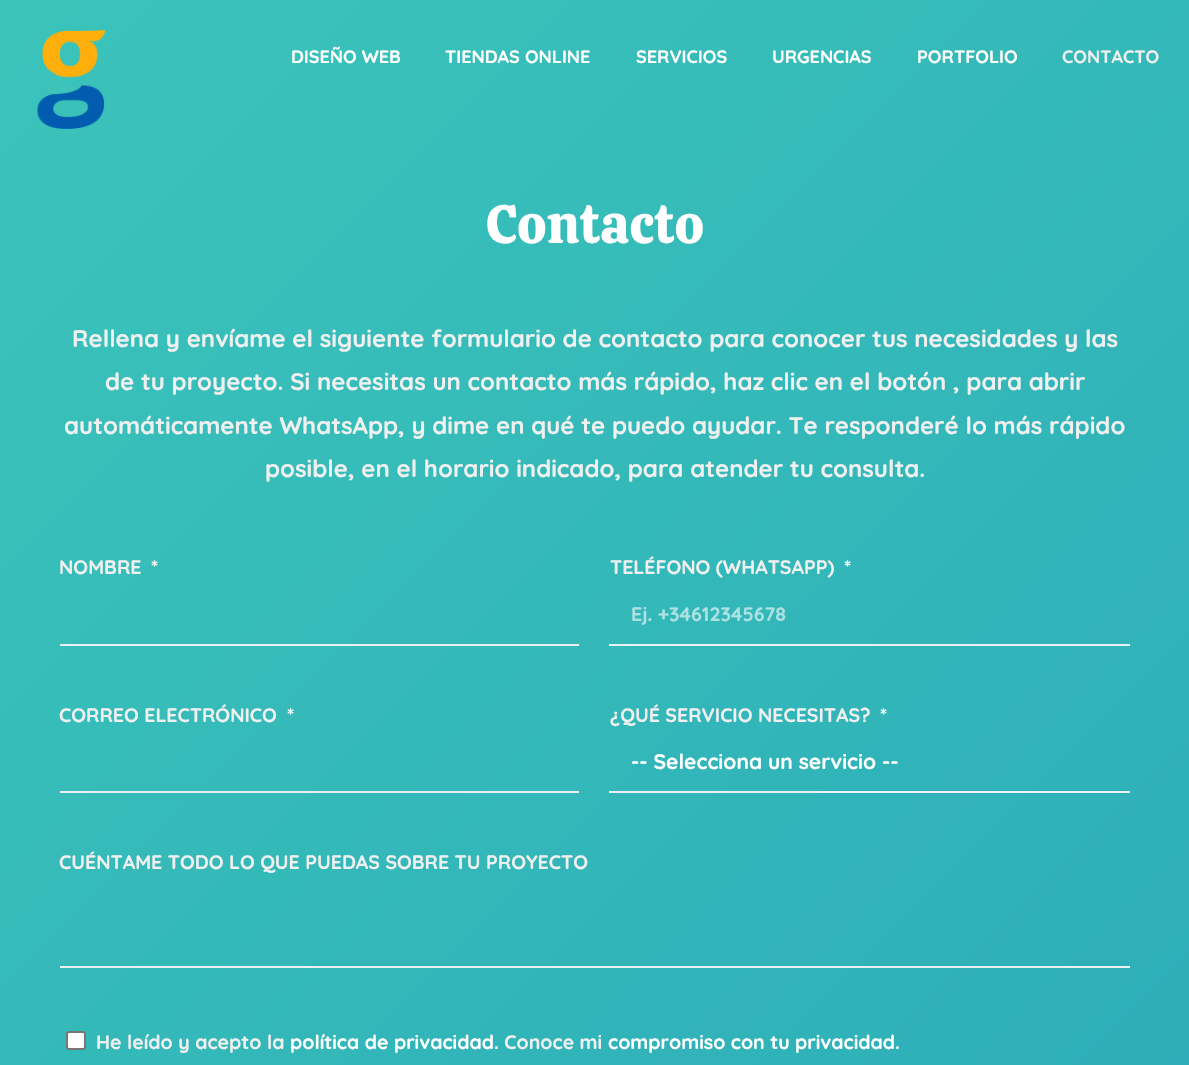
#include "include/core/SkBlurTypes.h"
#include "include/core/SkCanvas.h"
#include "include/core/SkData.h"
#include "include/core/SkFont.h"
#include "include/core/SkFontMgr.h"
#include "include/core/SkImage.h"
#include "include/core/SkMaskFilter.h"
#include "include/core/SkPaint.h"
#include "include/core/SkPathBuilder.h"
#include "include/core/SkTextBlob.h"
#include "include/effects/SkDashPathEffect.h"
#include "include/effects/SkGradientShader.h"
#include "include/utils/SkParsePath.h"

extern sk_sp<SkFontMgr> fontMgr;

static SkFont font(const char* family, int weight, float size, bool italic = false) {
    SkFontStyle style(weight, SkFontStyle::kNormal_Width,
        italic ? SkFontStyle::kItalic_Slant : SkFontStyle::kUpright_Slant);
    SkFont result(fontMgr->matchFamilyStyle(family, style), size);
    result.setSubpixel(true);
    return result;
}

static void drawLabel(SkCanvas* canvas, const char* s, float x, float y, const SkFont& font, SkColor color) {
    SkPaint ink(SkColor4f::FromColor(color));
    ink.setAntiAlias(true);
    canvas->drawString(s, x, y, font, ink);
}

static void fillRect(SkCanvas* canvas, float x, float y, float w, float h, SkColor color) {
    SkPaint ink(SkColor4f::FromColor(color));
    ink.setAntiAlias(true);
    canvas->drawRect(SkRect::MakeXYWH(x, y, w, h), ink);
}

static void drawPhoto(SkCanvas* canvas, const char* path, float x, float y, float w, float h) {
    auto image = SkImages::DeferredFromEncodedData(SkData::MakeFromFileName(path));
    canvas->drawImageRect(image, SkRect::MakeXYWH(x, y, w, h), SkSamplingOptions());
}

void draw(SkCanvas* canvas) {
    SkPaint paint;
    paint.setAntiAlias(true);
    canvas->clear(0xFFFFFFFF);
    {
        const SkColor colors[] = {0xFF3BC4BA, 0xFF0064B3, 0xFF000D75};
        const float stops[] = {0, 0.5f, 1};
        const SkPoint ends[] = {{-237, 237}, {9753, 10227}};
        paint.setShader(SkGradientShader::MakeLinear(ends, colors, stops, 3, SkTileMode::kClamp));
        paint.setAlpha(255);
    }
    canvas->drawRect(SkRect::MakeXYWH(0, 0, 1189, 1065), paint);
    drawPhoto(canvas, "assets/img1.png", 37, 30, 68, 99);
    SkFont font1 = font("Quicksand", 300, 18);
    drawLabel(canvas, "DISEÑO WEB", 291, 63, font1, 0xFFFFFFFF);
    drawLabel(canvas, "TIENDAS ONLINE", 445, 63, font1, 0xFFFFFFFF);
    drawLabel(canvas, "SERVICIOS", 636, 63, font1, 0xFFFFFFFF);
    drawLabel(canvas, "URGENCIAS", 772, 63, font1, 0xFFFFFFFF);
    drawLabel(canvas, "PORTFOLIO", 917, 63, font1, 0xFFFFFFFF);
    drawLabel(canvas, "CONTACTO", 1062, 63, font1, 0xFFF0F0F0);
    SkFont font2 = font("Calistoga", 400, 54);
    drawLabel(canvas, "Contacto", 486, 243, font2, 0xFFFFFFFF);
    SkFont font3 = font("Quicksand", 300, 24);
    drawLabel(canvas, "Rellena y envíame el siguiente formulario de contacto para conocer tus necesidades y las", 72, 347, font3, 0xFFF0F0F0);
    drawLabel(canvas, "de tu proyecto. Si necesitas un contacto más rápido, haz clic en el botón , para abrir", 105, 390, font3, 0xFFF0F0F0);
    drawLabel(canvas, "automáticamente WhatsApp, y dime en qué te puedo ayudar. Te responderé lo más rápido", 64, 434, font3, 0xFFF0F0F0);
    drawLabel(canvas, "posible, en el horario indicado, para atender tu consulta.", 265, 477, font3, 0xFFF0F0F0);
    SkFont font4 = font("Quicksand", 300, 19.5f);
    drawLabel(canvas, "NOMBRE", 59, 574, font4, 0xFFF0F0F0);
    drawLabel(canvas, "*", 151, 574, font4, 0xFFFFFFFF);
    fillRect(canvas, 60, 644, 519, 2, 0xFFEBF0F5);
    drawLabel(canvas, "TELÉFONO (WHATSAPP)", 610, 574, font4, 0xFFF0F0F0);
    drawLabel(canvas, "*", 844, 574, font4, 0xFFFFFFFF);
    fillRect(canvas, 609, 644, 521, 2, 0xFFEBF0F5);
    drawLabel(canvas, "Ej. +34612345678", 631, 621, font4, 0xFFADE2E3);
    drawLabel(canvas, "CORREO ELECTRÓNICO", 59, 722, font4, 0xFFF0F0F0);
    drawLabel(canvas, "*", 287, 722, font4, 0xFFFFFFFF);
    fillRect(canvas, 60, 791, 519, 2, 0xFFEBF0F5);
    drawLabel(canvas, "¿QUÉ SERVICIO NECESITAS?", 610, 722, font4, 0xFFF0F0F0);
    drawLabel(canvas, "*", 880, 722, font4, 0xFFFFFFFF);
    fillRect(canvas, 609, 791, 521, 2, 0xFFEBF0F5);
    SkFont font5 = font("Quicksand", 300, 21);
    drawLabel(canvas, "-- Selecciona un servicio --", 631, 769, font5, 0xFFFFFFFF);
    drawLabel(canvas, "CUÉNTAME TODO LO QUE PUEDAS SOBRE TU PROYECTO", 59, 869, font4, 0xFFF0F0F0);
    fillRect(canvas, 60, 966, 1070, 2, 0xFFEBF0F5);
    paint.setShader(nullptr);
    paint.setColor(0xFFFFFFFF);
    canvas->drawRoundRect(SkRect::MakeXYWH(67, 1032, 18, 17), 2, 2, paint);
    paint.setStroke(true);
    paint.setStrokeWidth(2);
    paint.setColor(0xFF767676);
    canvas->drawRoundRect(SkRect::MakeXYWH(67, 1032, 18, 17), 2, 2, paint);
    drawLabel(canvas, "He leído y acepto la", 96, 1049, font4, 0xFFF0F0F0);
    drawLabel(canvas, "política de privacidad", 290, 1049, font4, 0xFFFFFFFF);
    drawLabel(canvas, ". Conoce mi", 494, 1049, font4, 0xFFF0F0F0);
    drawLabel(canvas, "compromiso con tu privacidad", 608, 1049, font4, 0xFFFFFFFF);
    drawLabel(canvas, ".", 895, 1049, font4, 0xFFF0F0F0);
}
